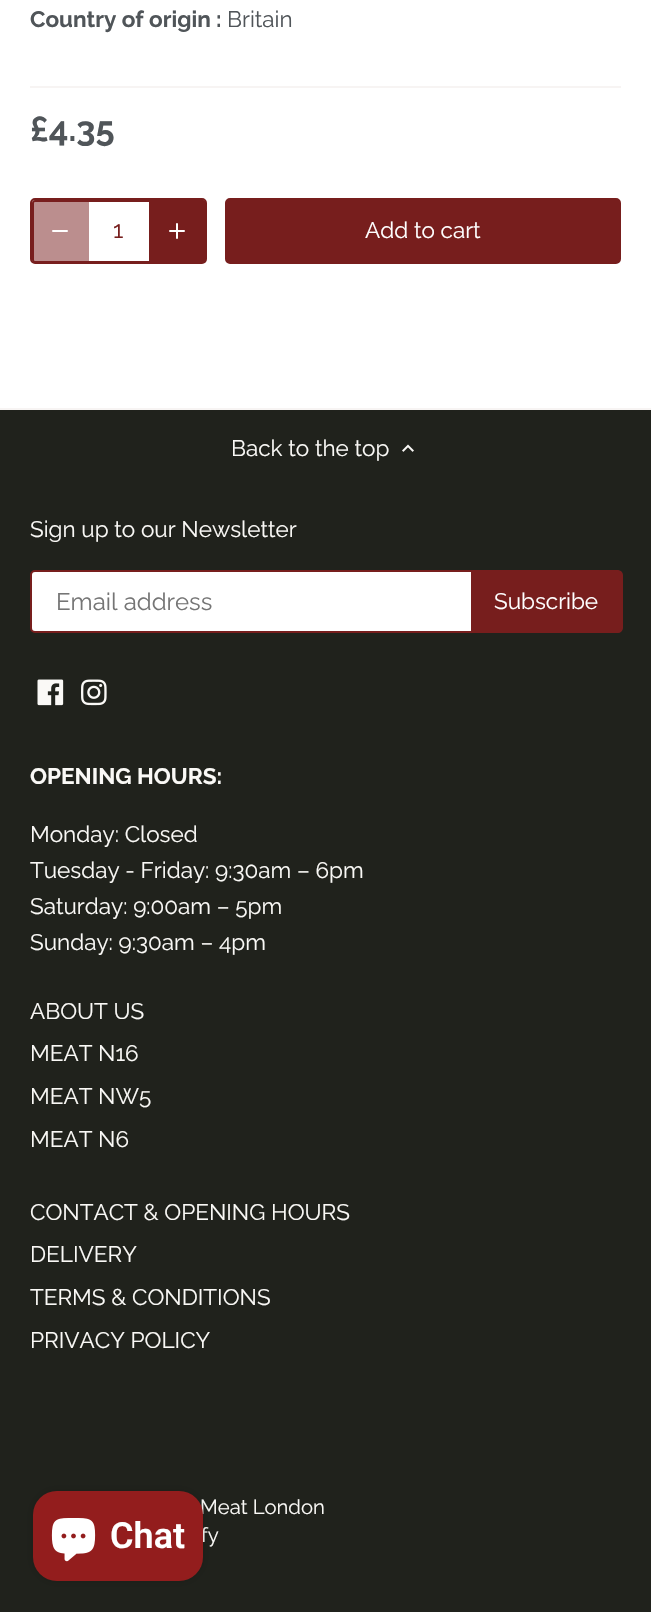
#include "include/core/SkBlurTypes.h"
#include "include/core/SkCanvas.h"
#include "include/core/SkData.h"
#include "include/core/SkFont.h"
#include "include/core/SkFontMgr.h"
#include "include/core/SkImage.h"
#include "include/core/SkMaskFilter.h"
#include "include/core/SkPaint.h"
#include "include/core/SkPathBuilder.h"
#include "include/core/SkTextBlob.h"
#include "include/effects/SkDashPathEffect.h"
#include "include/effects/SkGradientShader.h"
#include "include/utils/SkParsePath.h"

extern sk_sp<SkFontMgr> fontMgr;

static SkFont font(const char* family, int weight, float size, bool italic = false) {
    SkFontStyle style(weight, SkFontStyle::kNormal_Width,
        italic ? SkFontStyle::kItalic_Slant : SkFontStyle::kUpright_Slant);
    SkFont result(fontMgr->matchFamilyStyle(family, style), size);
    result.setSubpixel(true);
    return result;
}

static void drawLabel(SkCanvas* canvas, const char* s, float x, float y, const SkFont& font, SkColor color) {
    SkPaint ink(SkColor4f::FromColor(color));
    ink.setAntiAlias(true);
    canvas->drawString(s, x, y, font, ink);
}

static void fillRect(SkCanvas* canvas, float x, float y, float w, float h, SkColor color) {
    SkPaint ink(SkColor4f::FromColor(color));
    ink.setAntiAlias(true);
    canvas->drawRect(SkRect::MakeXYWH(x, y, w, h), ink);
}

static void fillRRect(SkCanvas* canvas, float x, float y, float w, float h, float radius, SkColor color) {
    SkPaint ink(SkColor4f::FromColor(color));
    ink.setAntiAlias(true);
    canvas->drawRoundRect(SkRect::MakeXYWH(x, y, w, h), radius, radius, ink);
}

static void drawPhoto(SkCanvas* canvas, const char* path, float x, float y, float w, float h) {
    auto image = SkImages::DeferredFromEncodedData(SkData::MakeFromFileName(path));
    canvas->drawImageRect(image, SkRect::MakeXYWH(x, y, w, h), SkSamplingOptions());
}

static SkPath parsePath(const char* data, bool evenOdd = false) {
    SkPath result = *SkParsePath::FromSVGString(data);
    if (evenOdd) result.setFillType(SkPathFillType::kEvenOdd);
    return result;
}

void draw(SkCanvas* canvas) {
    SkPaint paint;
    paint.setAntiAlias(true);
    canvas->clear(0xFF20221C);
    fillRect(canvas, 0, 0, 651, 408, 0xFFFFFFFF);
    SkFont font1 = font("Raleway", 700, 22.5f);
    drawLabel(canvas, "Country of origin :", 30, 27, font1, 0xFF505559);
    SkFont font2 = font("Raleway", 400, 22.5f);
    drawLabel(canvas, "Britain", 227, 27, font2, 0xFF505559);
    fillRect(canvas, 30, 86, 591, 2, 0xFFF7F4F3);
    SkFont font3 = font("Raleway", 700, 34.5f);
    drawLabel(canvas, "£4.35", 30, 141, font3, 0xFF505559);
    paint.setStroke(true);
    paint.setStrokeWidth(2);
    paint.setColor(0xFF771E1D);
    canvas->drawRoundRect(SkRect::MakeXYWH(33, 201, 172, 61), 2, 2, paint);
    canvas->drawRoundRect(SkRect::MakeXYWH(31, 199, 175, 64), 4, 4, paint);
    paint.setStroke(false);
    paint.setColor(0x80771E1D);
    canvas->drawPath(parsePath("M37 200H89V263H37C34 263 32 261 32 258V205C32 202 34 200 37 200Z"), paint);
    paint.setStroke(true);
    paint.setStrokeCap(SkPaint::kRound_Cap);
    paint.setStrokeJoin(SkPaint::kRound_Join);
    paint.setColor(0xFFFFFFFF);
    canvas->drawPath(parsePath("M53 231H67"), paint);
    SkFont font4 = font("Raleway", 400, 24);
    drawLabel(canvas, "1", 113, 238, font4, 0xFF771E1D);
    paint.setStroke(false);
    paint.setColor(0xFF771E1D);
    canvas->drawPath(parsePath("M149 200H201C204 200 206 202 206 205V258C206 261 204 263 201 263H149Z"), paint);
    paint.setStroke(true);
    paint.setColor(0xFFFFFFFF);
    canvas->drawPath(parsePath("M177 224V238M170 231H184"), paint);
    paint.setStroke(false);
    paint.setColor(0xFF771E1D);
    canvas->drawRoundRect(SkRect::MakeXYWH(226.5f, 199.5f, 393, 63), 3.5f, 3.5f, paint);
    paint.setStroke(true);
    paint.setStrokeWidth(3);
    paint.setStrokeCap(SkPaint::kButt_Cap);
    paint.setStrokeJoin(SkPaint::kMiter_Join);
    canvas->drawRoundRect(SkRect::MakeXYWH(226.5f, 199.5f, 393, 63), 3.5f, 3.5f, paint);
    drawLabel(canvas, "Add to cart", 365, 238, font2, 0xFFFFFFFF);
    fillRect(canvas, 0, 408, 651, 2, 0xFFF7F4F3);
    drawLabel(canvas, "Back to the top", 231, 456, font2, 0xFFFAF9F6);
    drawPhoto(canvas, "assets/img1.png", 402, 444, 12, 8);
    drawLabel(canvas, "Sign up to our Newsletter", 30, 537, font2, 0xFFFAF9F6);
    paint.setStroke(false);
    paint.setColor(0xFFFFFFFF);
    canvas->drawRoundRect(SkRect::MakeXYWH(31, 571, 589, 61), 4, 4, paint);
    paint.setStroke(true);
    paint.setStrokeWidth(2);
    paint.setColor(0xFF771E1D);
    canvas->drawRoundRect(SkRect::MakeXYWH(31, 571, 589, 61), 4, 4, paint);
    drawLabel(canvas, "Email address", 56, 610, font4, 0xFF757575);
    paint.setStroke(false);
    canvas->drawPath(parsePath("M472 571H618C620 571 622 573 622 575V628C622 630 620 632 618 632H472Z"), paint);
    paint.setStroke(true);
    canvas->drawPath(parsePath("M472 571H618C620 571 622 573 622 575V628C622 630 620 632 618 632H472Z"), paint);
    drawLabel(canvas, "Subscribe", 494, 609, font2, 0xFFFFFFFF);
    drawPhoto(canvas, "assets/img2.png", 37, 679, 27, 27);
    drawPhoto(canvas, "assets/img3.png", 81, 679, 26, 27);
    drawLabel(canvas, "OPENING HOURS:", 30, 784, font1, 0xFFFAF9F6);
    drawLabel(canvas, "Monday: Closed", 30, 842, font2, 0xFFFAF9F6);
    drawLabel(canvas, "Tuesday - Friday: 9:30am – 6pm", 30, 878, font2, 0xFFFAF9F6);
    drawLabel(canvas, "Saturday: 9:00am – 5pm", 30, 914, font2, 0xFFFAF9F6);
    drawLabel(canvas, "Sunday: 9:30am – 4pm", 30, 950, font2, 0xFFFAF9F6);
    drawLabel(canvas, "ABOUT US", 30, 1019, font2, 0xFFFAF9F6);
    drawLabel(canvas, "MEAT N16", 30, 1061, font2, 0xFFFAF9F6);
    drawLabel(canvas, "MEAT NW5", 30, 1104, font2, 0xFFFAF9F6);
    drawLabel(canvas, "MEAT N6", 30, 1147, font2, 0xFFFAF9F6);
    drawLabel(canvas, "CONTACT & OPENING HOURS", 30, 1220, font2, 0xFFFAF9F6);
    drawLabel(canvas, "DELIVERY", 30, 1262, font2, 0xFFFAF9F6);
    drawLabel(canvas, "TERMS & CONDITIONS", 30, 1305, font2, 0xFFFAF9F6);
    drawLabel(canvas, "PRIVACY POLICY", 30, 1348, font2, 0xFFFAF9F6);
    SkFont font5 = font("Raleway", 400, 20.25f);
    drawLabel(canvas, "Meat London", 200, 1514, font5, 0xFFFAF9F6);
    drawLabel(canvas, "fy", 201, 1542, font5, 0xFFFAF9F6);
    paint.setStroke(false);
    paint.setColor(0x26000000);
    paint.setMaskFilter(SkMaskFilter::MakeBlur(kNormal_SkBlurStyle, 4));
    canvas->drawRoundRect(SkRect::MakeXYWH(33, 1491, 170, 90), 24, 24, paint);
    paint.setMaskFilter(nullptr);
    fillRRect(canvas, 33, 1491, 170, 90, 24, 0xFF931D1D);
    drawPhoto(canvas, "assets/img4.png", 51, 1518, 45, 44);
    SkFont font6 = font("Roboto", 600, 36);
    drawLabel(canvas, "Chat", 110, 1548, font6, 0xFFFFFFFF);
}
